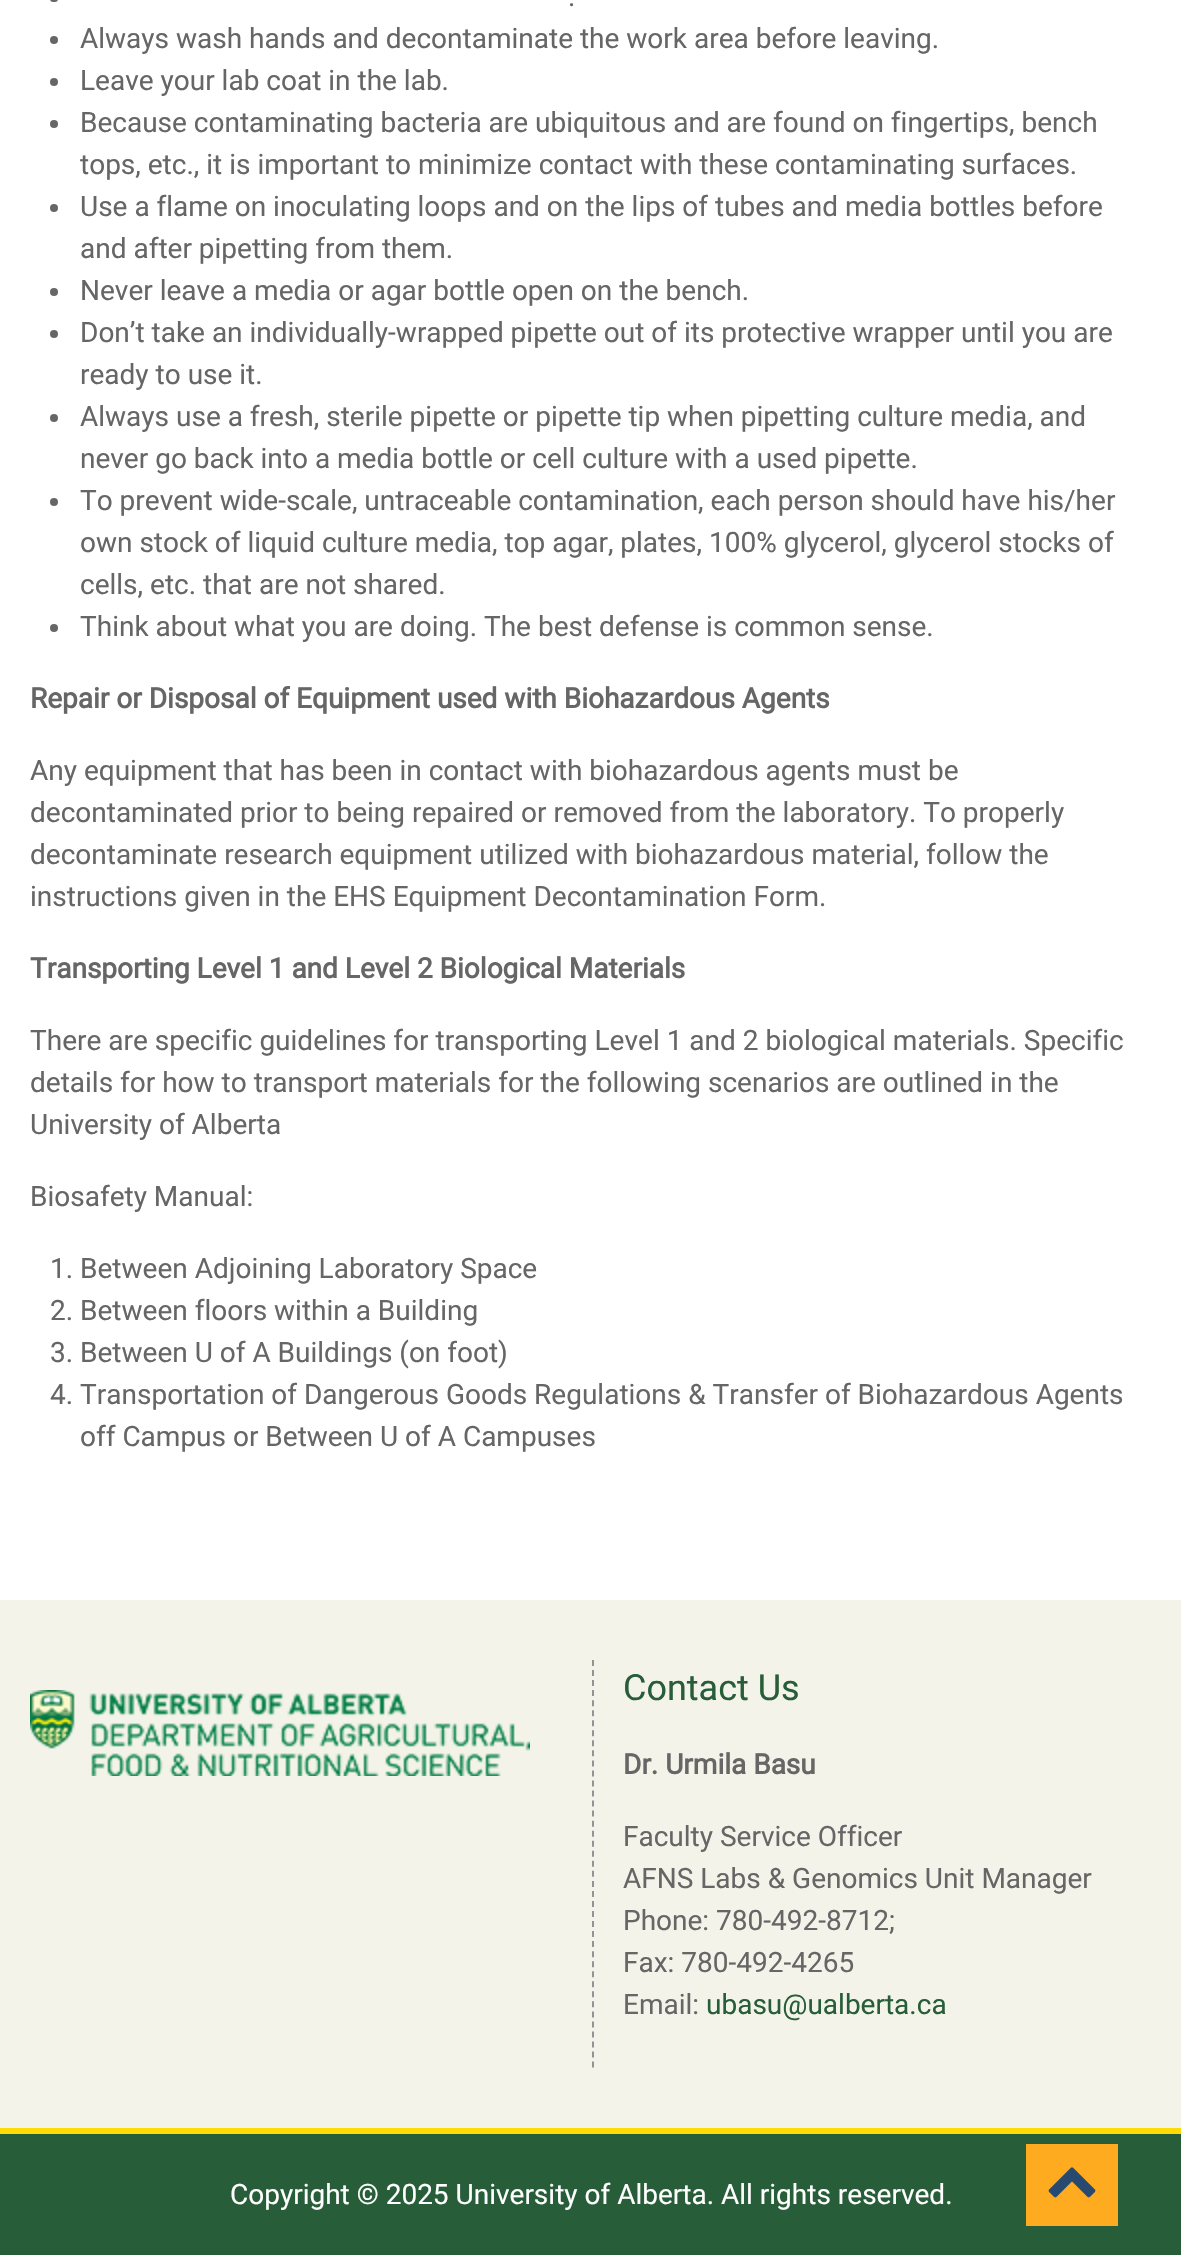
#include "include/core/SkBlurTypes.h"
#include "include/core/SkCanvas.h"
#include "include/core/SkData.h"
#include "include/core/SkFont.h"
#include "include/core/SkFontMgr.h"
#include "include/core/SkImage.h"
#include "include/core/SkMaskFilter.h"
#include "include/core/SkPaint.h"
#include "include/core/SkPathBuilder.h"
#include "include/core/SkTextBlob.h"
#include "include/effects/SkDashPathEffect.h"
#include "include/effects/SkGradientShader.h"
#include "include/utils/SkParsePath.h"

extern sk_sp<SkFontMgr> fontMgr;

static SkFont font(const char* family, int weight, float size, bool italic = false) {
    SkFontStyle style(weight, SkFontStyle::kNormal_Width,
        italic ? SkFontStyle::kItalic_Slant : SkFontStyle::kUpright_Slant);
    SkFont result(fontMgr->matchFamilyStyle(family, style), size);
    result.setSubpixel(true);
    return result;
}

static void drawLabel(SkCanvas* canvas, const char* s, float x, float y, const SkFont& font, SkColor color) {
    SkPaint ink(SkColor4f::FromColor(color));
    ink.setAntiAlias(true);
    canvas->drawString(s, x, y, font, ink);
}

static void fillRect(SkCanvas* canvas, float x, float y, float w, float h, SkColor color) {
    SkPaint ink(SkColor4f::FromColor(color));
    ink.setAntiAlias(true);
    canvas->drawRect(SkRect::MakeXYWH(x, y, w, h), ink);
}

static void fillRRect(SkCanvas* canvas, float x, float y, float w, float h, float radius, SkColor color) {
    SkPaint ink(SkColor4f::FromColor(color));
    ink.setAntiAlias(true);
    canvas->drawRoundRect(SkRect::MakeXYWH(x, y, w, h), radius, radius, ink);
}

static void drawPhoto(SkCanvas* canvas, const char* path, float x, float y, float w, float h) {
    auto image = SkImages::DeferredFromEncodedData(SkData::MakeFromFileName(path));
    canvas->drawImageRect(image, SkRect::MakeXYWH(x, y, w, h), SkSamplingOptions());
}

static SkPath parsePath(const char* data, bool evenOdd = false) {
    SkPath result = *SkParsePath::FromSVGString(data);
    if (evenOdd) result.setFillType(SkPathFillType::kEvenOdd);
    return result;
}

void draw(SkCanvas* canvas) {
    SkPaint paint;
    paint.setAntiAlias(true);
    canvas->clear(0xFFFFFFFF);
    fillRRect(canvas, 50, -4, 8, 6, 4, 0xFF666666);
    SkFont font1 = font("Roboto", 400, 28);
    drawLabel(canvas, ".", 568, 6, font1, 0xFF666666);
    paint.setColor(0xFF666666);
    canvas->drawCircle(54, 40, 4, paint);
    drawLabel(canvas, "Always wash hands and decontaminate the work area before leaving.", 80, 48, font1, 0xFF666666);
    canvas->drawCircle(54, 82, 4, paint);
    drawLabel(canvas, "Leave your lab coat in the lab.", 80, 90, font1, 0xFF666666);
    canvas->drawCircle(54, 124, 4, paint);
    drawLabel(canvas, "Because contaminating bacteria are ubiquitous and are found on fingertips, bench", 80, 132, font1, 0xFF666666);
    drawLabel(canvas, "tops, etc., it is important to minimize contact with these contaminating surfaces.", 80, 174, font1, 0xFF666666);
    canvas->drawCircle(54, 208, 4, paint);
    drawLabel(canvas, "Use a flame on inoculating loops and on the lips of tubes and media bottles before", 80, 216, font1, 0xFF666666);
    drawLabel(canvas, "and after pipetting from them.", 80, 258, font1, 0xFF666666);
    canvas->drawCircle(54, 292, 4, paint);
    drawLabel(canvas, "Never leave a media or agar bottle open on the bench.", 80, 300, font1, 0xFF666666);
    canvas->drawCircle(54, 334, 4, paint);
    drawLabel(canvas, "Don’t take an individually-wrapped pipette out of its protective wrapper until you are", 80, 342, font1, 0xFF666666);
    drawLabel(canvas, "ready to use it.", 80, 384, font1, 0xFF666666);
    canvas->drawCircle(54, 418, 4, paint);
    drawLabel(canvas, "Always use a fresh, sterile pipette or pipette tip when pipetting culture media, and", 80, 426, font1, 0xFF666666);
    drawLabel(canvas, "never go back into a media bottle or cell culture with a used pipette.", 80, 468, font1, 0xFF666666);
    canvas->drawCircle(54, 502, 4, paint);
    drawLabel(canvas, "To prevent wide-scale, untraceable contamination, each person should have his/her", 80, 510, font1, 0xFF666666);
    drawLabel(canvas, "own stock of liquid culture media, top agar, plates, 100% glycerol, glycerol stocks of", 80, 552, font1, 0xFF666666);
    drawLabel(canvas, "cells, etc. that are not shared.", 80, 594, font1, 0xFF666666);
    canvas->drawCircle(54, 628, 4, paint);
    drawLabel(canvas, "Think about what you are doing. The best defense is common sense.", 80, 636, font1, 0xFF666666);
    SkFont font2 = font("Roboto", 700, 28);
    drawLabel(canvas, "Repair or Disposal of Equipment used with Biohazardous Agents", 30, 708, font2, 0xFF666666);
    drawLabel(canvas, "Any equipment that has been in contact with biohazardous agents must be", 30, 780, font1, 0xFF666666);
    drawLabel(canvas, "decontaminated prior to being repaired or removed from the laboratory. To properly", 30, 822, font1, 0xFF666666);
    drawLabel(canvas, "decontaminate research equipment utilized with biohazardous material, follow the", 30, 864, font1, 0xFF666666);
    drawLabel(canvas, "instructions given in the EHS Equipment Decontamination Form.", 30, 906, font1, 0xFF666666);
    drawLabel(canvas, "Transporting Level 1 and Level 2 Biological Materials", 30, 978, font2, 0xFF666666);
    drawLabel(canvas, "There are specific guidelines for transporting Level 1 and 2 biological materials. Specific", 30, 1050, font1, 0xFF666666);
    drawLabel(canvas, "details for how to transport materials for the following scenarios are outlined in the", 30, 1092, font1, 0xFF666666);
    drawLabel(canvas, "University of Alberta", 30, 1134, font1, 0xFF666666);
    drawLabel(canvas, "Biosafety Manual:", 30, 1206, font1, 0xFF666666);
    drawLabel(canvas, "1. Between Adjoining Laboratory Space", 50, 1278, font1, 0xFF666666);
    drawLabel(canvas, "2. Between floors within a Building", 50, 1320, font1, 0xFF666666);
    drawLabel(canvas, "3. Between U of A Buildings (on foot)", 50, 1362, font1, 0xFF666666);
    drawLabel(canvas, "4. Transportation of Dangerous Goods Regulations & Transfer of Biohazardous Agents", 50, 1404, font1, 0xFF666666);
    drawLabel(canvas, "off Campus or Between U of A Campuses", 80, 1446, font1, 0xFF666666);
    fillRect(canvas, 0, 1600, 1181, 528, 0xFFF3F3E9);
    drawPhoto(canvas, "assets/img1.png", 30, 1690, 500, 86);
    paint.setStroke(true);
    paint.setStrokeWidth(2);
    paint.setColor(0xFF939393);
    paint.setPathEffect(SkDashPathEffect::Make({{6, 4.04f}}, 0));
    canvas->drawPath(parsePath("M593 1660V2068"), paint);
    paint.setPathEffect(nullptr);
    SkFont font3 = font("Roboto", 400, 36);
    drawLabel(canvas, "Contact Us", 623, 1700, font3, 0xFF275D38);
    drawLabel(canvas, "Dr. Urmila Basu", 623, 1774, font2, 0xFF666666);
    drawLabel(canvas, "Faculty Service Officer", 623, 1846, font1, 0xFF666666);
    drawLabel(canvas, "AFNS Labs & Genomics Unit Manager", 623, 1888, font1, 0xFF666666);
    drawLabel(canvas, "Phone: 780-492-8712;", 623, 1930, font1, 0xFF666666);
    drawLabel(canvas, "Fax: 780-492-4265", 623, 1972, font1, 0xFF666666);
    drawLabel(canvas, "Email:", 623, 2014, font1, 0xFF666666);
    drawLabel(canvas, "ubasu@ualberta.ca", 706, 2014, font1, 0xFF275D38);
    fillRect(canvas, 0, 2134, 1181, 121, 0xFF275D38);
    fillRect(canvas, 0, 2128, 1181, 6, 0xFFFFDB05);
    drawLabel(canvas, "Copyright © 2025 University of Alberta. All rights reserved.", 230, 2204, font1, 0xFFFFFFFF);
    fillRect(canvas, 1026, 2144, 92, 82, 0xFFFFAB1F);
    drawPhoto(canvas, "assets/img2.png", 1048, 2167, 48, 31);
}
